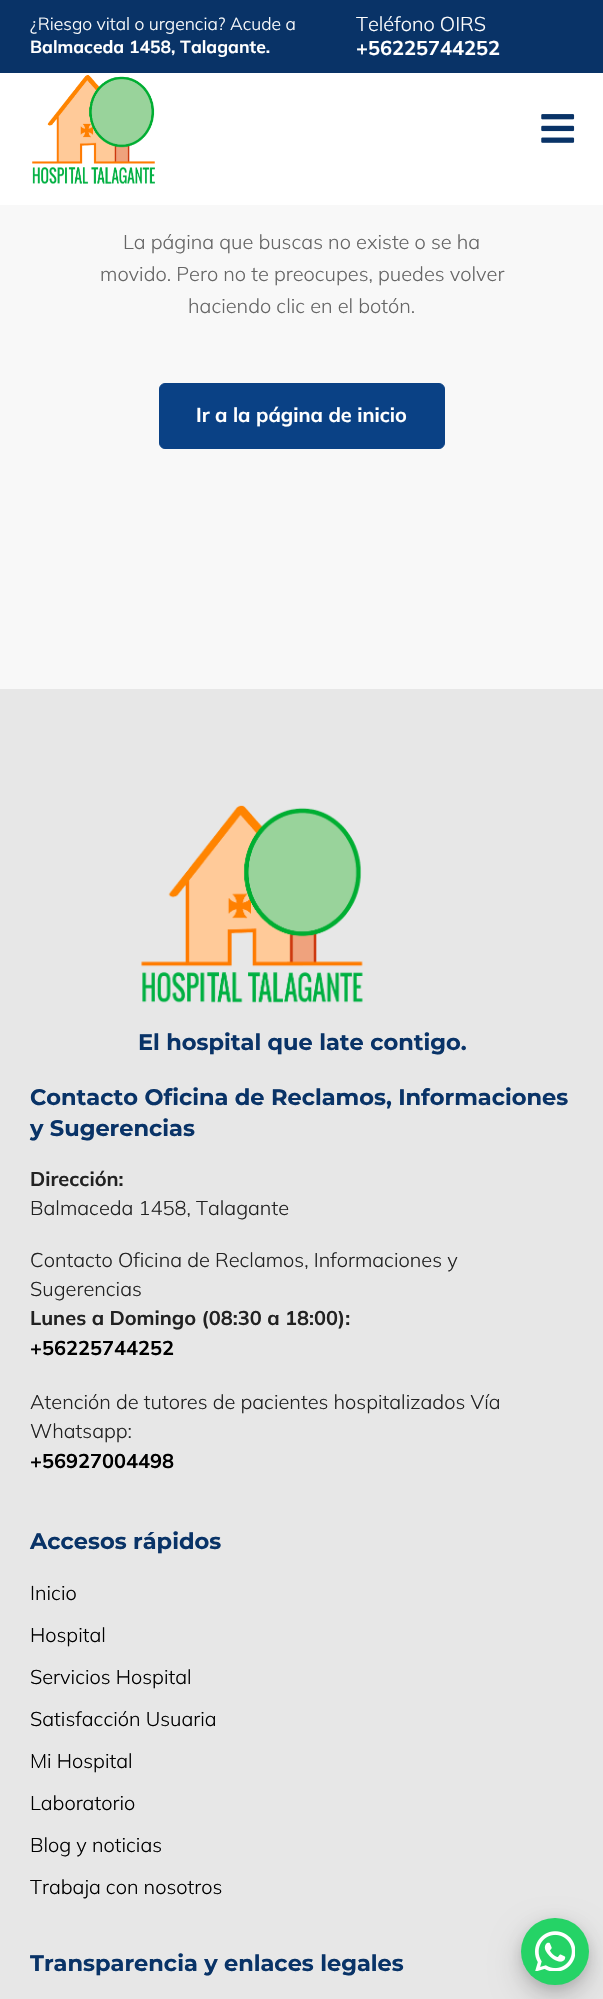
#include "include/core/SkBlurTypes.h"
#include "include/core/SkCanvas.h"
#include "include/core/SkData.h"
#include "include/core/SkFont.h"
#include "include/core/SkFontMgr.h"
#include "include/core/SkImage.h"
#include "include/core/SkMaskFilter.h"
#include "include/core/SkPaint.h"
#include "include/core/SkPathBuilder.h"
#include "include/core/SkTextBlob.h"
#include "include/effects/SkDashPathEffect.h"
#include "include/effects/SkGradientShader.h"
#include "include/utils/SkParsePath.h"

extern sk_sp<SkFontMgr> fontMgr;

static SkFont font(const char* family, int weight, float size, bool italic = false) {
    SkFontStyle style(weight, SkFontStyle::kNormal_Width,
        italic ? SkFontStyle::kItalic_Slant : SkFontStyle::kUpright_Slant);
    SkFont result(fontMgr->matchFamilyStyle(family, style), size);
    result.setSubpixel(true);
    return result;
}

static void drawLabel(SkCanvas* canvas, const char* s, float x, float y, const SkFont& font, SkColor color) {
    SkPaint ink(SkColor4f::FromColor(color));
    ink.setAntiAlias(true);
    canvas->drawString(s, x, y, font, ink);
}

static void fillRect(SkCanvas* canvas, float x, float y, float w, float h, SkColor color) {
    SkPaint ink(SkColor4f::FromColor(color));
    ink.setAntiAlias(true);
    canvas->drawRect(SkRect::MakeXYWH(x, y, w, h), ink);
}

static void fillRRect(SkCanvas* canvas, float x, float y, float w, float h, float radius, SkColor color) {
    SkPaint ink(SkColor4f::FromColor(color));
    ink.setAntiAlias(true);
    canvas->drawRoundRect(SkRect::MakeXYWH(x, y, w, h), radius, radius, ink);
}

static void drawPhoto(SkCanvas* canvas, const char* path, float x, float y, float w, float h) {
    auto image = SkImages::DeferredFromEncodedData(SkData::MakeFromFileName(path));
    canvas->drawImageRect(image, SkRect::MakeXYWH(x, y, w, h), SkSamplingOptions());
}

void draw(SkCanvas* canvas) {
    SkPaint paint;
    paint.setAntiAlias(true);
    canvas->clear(0xFFF8F8F8);
    fillRect(canvas, 0, 73, 603, 132, 0xFFFFFFFF);
    fillRect(canvas, 0, 0, 603, 73, 0xFF093367);
    SkFont font1 = font("Mulish", 300, 17.5f);
    drawLabel(canvas, "¿Riesgo vital o urgencia? Acude a", 30, 30, font1, 0xFFFFFFFF);
    SkFont font2 = font("Mulish", 700, 17.5f);
    drawLabel(canvas, "Balmaceda 1458, Talagante.", 30, 53, font2, 0xFFFFFFFF);
    SkFont font3 = font("Mulish", 300, 20);
    drawLabel(canvas, "Teléfono OIRS", 356, 31, font3, 0xFFFFFFFF);
    SkFont font4 = font("Mulish", 700, 20);
    drawLabel(canvas, "+56225744252", 356, 55, font4, 0xFFFFFFFF);
    drawPhoto(canvas, "assets/img1.png", 32, 75, 123, 109);
    drawPhoto(canvas, "assets/img2.png", 541, 114, 34, 29);
    drawLabel(canvas, "La página que buscas no existe o se ha", 123, 249, font3, 0xFF666666);
    drawLabel(canvas, "movido. Pero no te preocupes, puedes volver", 100, 281, font3, 0xFF666666);
    drawLabel(canvas, "haciendo clic en el botón.", 188, 313, font3, 0xFF666666);
    paint.setColor(0xFF0A4185);
    canvas->drawRoundRect(SkRect::MakeXYWH(159.5f, 383.5f, 285, 65), 5.5f, 5.5f, paint);
    paint.setStroke(true);
    paint.setStrokeWidth(1);
    canvas->drawRoundRect(SkRect::MakeXYWH(159.5f, 383.5f, 285, 65), 5.5f, 5.5f, paint);
    drawLabel(canvas, "Ir a la página de inicio", 196, 422, font4, 0xFFFFFFFF);
    fillRect(canvas, 0, 689, 603, 1310, 0xFFE7E7E7);
    drawPhoto(canvas, "assets/img3.png", 141, 805, 222, 198);
    SkFont font5 = font("Montserrat", 700, 22.5f);
    drawLabel(canvas, "El hospital que late contigo.", 138, 1050, font5, 0xFF093367);
    drawLabel(canvas, "Contacto Oficina de Reclamos, Informaciones", 30, 1105, font5, 0xFF093367);
    drawLabel(canvas, "y Sugerencias", 30, 1136, font5, 0xFF093367);
    drawLabel(canvas, "Dirección:", 30, 1186, font4, 0xFF222222);
    drawLabel(canvas, "Balmaceda 1458, Talagante", 30, 1215, font3, 0xFF222222);
    drawLabel(canvas, "Contacto Oficina de Reclamos, Informaciones y", 30, 1267, font3, 0xFF222222);
    drawLabel(canvas, "Sugerencias", 30, 1296, font3, 0xFF222222);
    drawLabel(canvas, "Lunes a Domingo (08:30 a 18:00):", 30, 1325, font4, 0xFF222222);
    drawLabel(canvas, "+56225744252", 30, 1355, font4, 0xFF000000);
    drawLabel(canvas, "Atención de tutores de pacientes hospitalizados Vía", 30, 1409, font3, 0xFF222222);
    drawLabel(canvas, "Whatsapp:", 30, 1438, font3, 0xFF222222);
    drawLabel(canvas, "+56927004498", 30, 1468, font4, 0xFF000000);
    drawLabel(canvas, "Accesos rápidos", 30, 1549, font5, 0xFF093367);
    drawLabel(canvas, "Inicio", 30, 1600, font3, 0xFF000000);
    drawLabel(canvas, "Hospital", 30, 1642, font3, 0xFF000000);
    drawLabel(canvas, "Servicios Hospital", 30, 1684, font3, 0xFF000000);
    drawLabel(canvas, "Satisfacción Usuaria", 30, 1726, font3, 0xFF000000);
    drawLabel(canvas, "Mi Hospital", 30, 1768, font3, 0xFF000000);
    drawLabel(canvas, "Laboratorio", 30, 1810, font3, 0xFF000000);
    drawLabel(canvas, "Blog y noticias", 30, 1852, font3, 0xFF000000);
    drawLabel(canvas, "Trabaja con nosotros", 30, 1894, font3, 0xFF000000);
    drawLabel(canvas, "Transparencia y enlaces legales", 30, 1971, font5, 0xFF093367);
    paint.setStroke(false);
    paint.setColor(0x1F000000);
    paint.setMaskFilter(SkMaskFilter::MakeBlur(kNormal_SkBlurStyle, 6));
    canvas->drawRoundRect(SkRect::MakeXYWH(521, 1921, 68, 68), 34, 34, paint);
    paint.setMaskFilter(nullptr);
    paint.setColor(0x2E000000);
    paint.setMaskFilter(SkMaskFilter::MakeBlur(kNormal_SkBlurStyle, 15));
    canvas->drawRoundRect(SkRect::MakeXYWH(521, 1930, 68, 68), 34, 34, paint);
    paint.setMaskFilter(nullptr);
    fillRRect(canvas, 521, 1918, 68, 67, 33.5f, 0xFF25D366);
    drawPhoto(canvas, "assets/img4.png", 535, 1931, 40, 40);
}
